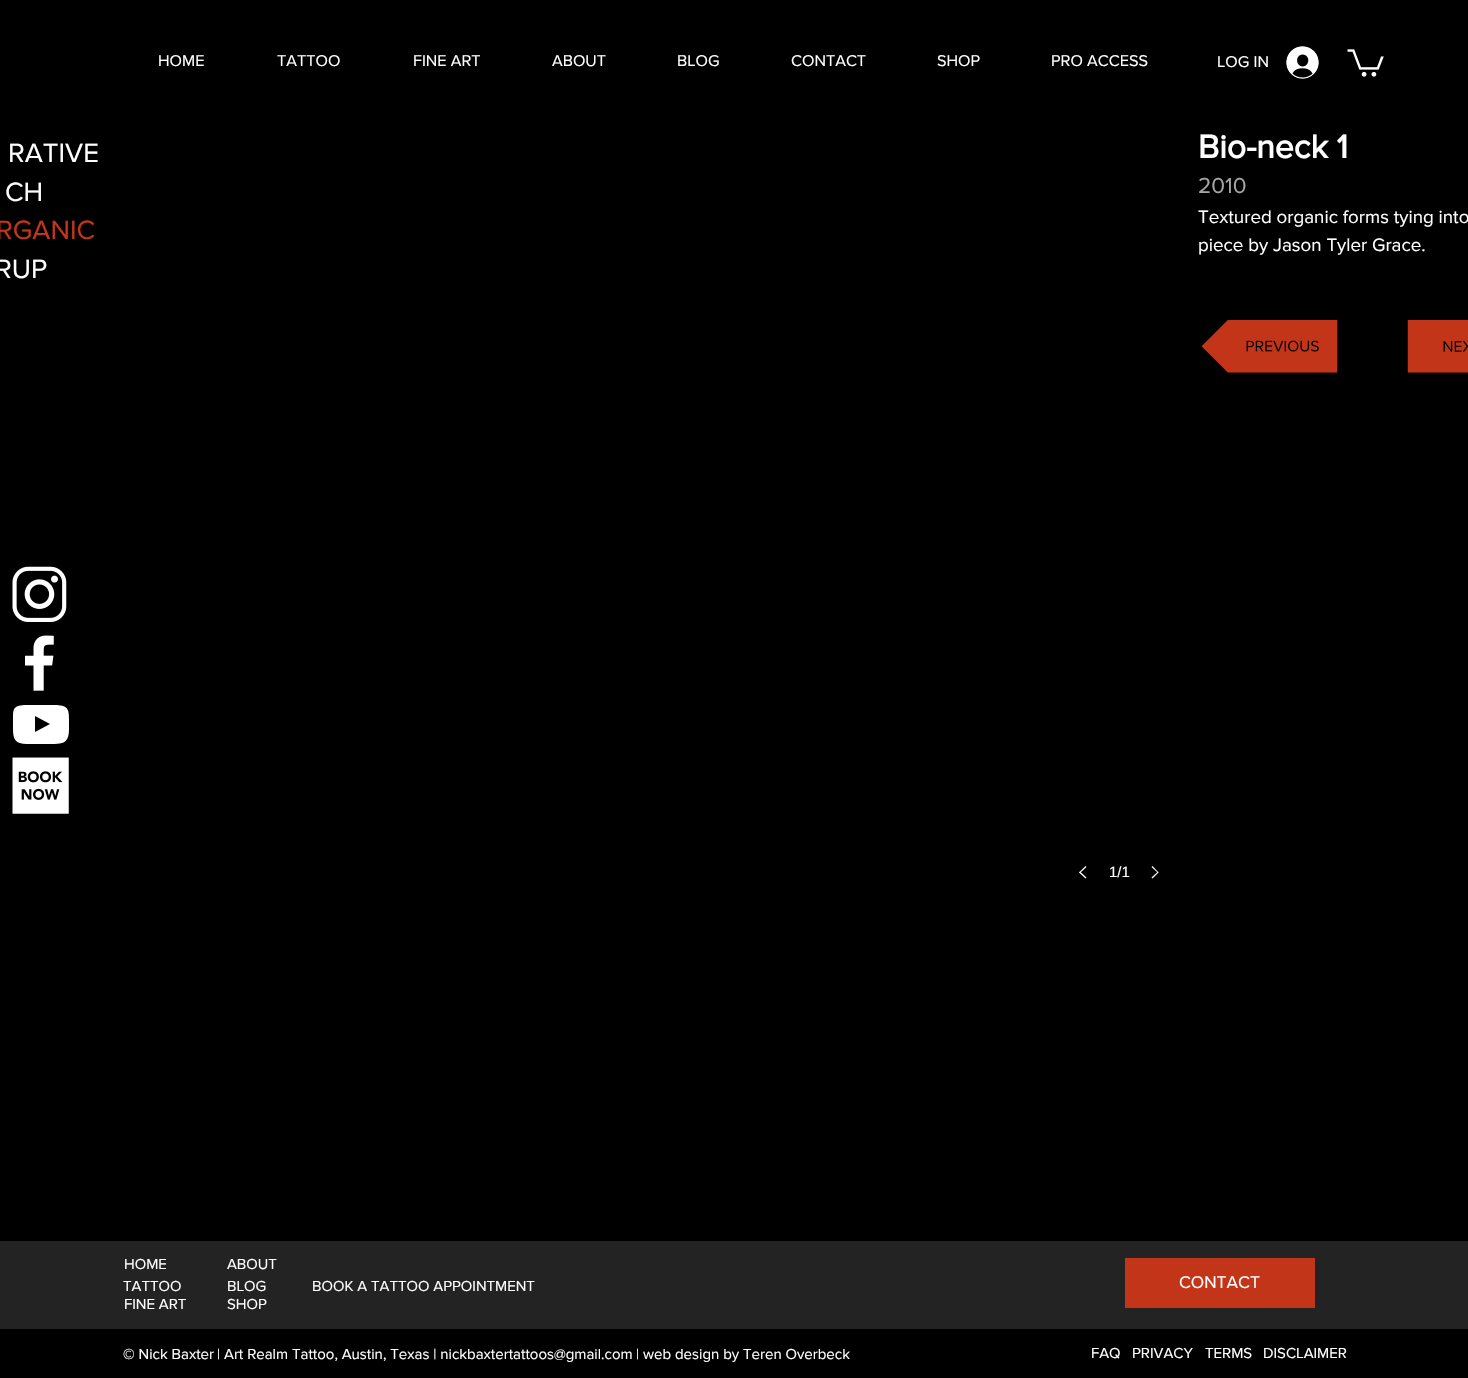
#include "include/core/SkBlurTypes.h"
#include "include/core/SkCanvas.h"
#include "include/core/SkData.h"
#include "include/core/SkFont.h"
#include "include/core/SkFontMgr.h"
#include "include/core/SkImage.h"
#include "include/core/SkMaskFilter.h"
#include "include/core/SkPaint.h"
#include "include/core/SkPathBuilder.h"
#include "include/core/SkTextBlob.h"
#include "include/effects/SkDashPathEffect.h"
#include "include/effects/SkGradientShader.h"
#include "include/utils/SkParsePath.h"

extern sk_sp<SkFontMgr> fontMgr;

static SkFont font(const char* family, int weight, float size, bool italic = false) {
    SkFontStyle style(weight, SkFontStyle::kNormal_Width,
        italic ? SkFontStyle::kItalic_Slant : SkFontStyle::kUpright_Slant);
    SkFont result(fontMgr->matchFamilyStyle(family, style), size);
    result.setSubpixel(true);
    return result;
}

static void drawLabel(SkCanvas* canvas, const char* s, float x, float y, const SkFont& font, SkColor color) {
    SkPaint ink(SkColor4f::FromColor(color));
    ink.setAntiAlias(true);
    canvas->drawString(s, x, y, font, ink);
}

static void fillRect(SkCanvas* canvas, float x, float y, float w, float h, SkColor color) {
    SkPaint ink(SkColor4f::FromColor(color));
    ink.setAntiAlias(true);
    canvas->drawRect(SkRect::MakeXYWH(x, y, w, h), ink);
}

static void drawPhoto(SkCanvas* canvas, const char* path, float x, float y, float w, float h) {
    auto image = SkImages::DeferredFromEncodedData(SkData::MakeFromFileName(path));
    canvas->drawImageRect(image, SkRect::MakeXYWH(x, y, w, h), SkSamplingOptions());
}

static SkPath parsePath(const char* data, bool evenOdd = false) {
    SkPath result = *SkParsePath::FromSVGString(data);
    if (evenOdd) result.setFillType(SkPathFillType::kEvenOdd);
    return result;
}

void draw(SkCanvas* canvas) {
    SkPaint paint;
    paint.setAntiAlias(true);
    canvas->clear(0xFF000000);
    SkFont font1 = font("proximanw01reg", 400, 16.25f);
    drawLabel(canvas, "HOME", 158, 66, font1, 0xFFFFFFFF);
    drawLabel(canvas, "TATTOO", 277, 66, font1, 0xFFFFFFFF);
    drawLabel(canvas, "FINE ART", 413, 66, font1, 0xFFFFFFFF);
    drawLabel(canvas, "ABOUT", 552, 66, font1, 0xFFFFFFFF);
    drawLabel(canvas, "BLOG", 677, 66, font1, 0xFFFFFFFF);
    drawLabel(canvas, "CONTACT", 791, 66, font1, 0xFFFFFFFF);
    drawLabel(canvas, "SHOP", 937, 66, font1, 0xFFFFFFFF);
    drawLabel(canvas, "PRO ACCESS", 1051, 66, font1, 0xFFFFFFFF);
    drawLabel(canvas, "LOG IN", 1217, 67, font1, 0xFFFFFFFF);
    drawPhoto(canvas, "assets/img1.png", 1286, 46, 33, 33);
    drawPhoto(canvas, "assets/img2.png", 1347, 49, 37, 28);
    SkFont font2 = font("proximanw01reg", 400, 27.5f);
    drawLabel(canvas, "RATIVE", 8, 162, font2, 0xFFFFFFFF);
    drawLabel(canvas, "CH", 5, 201, font2, 0xFFFFFFFF);
    drawLabel(canvas, "RGANIC", -4, 239, font2, 0xFFC23519);
    drawLabel(canvas, "RUP", -5, 278, font2, 0xFFFFFFFF);
    SkFont font3 = font("proximanw01reg", 700, 33.75f);
    drawLabel(canvas, "Bio-neck 1", 1198, 158, font3, 0xFFFFFFFF);
    SkFont font4 = font("proximanw01reg", 400, 22.5f);
    drawLabel(canvas, "2010", 1198, 193, font4, 0xFFA5A5A5);
    SkFont font5 = font("proximanw01reg", 400, 18.75f);
    drawLabel(canvas, "Textured organic forms tying into", 1198, 223, font5, 0xFFFFFFFF);
    drawLabel(canvas, "piece by Jason Tyler Grace.", 1198, 251, font5, 0xFFFFFFFF);
    drawPhoto(canvas, "assets/img3.png", 1201, 320, 137, 53);
    drawPhoto(canvas, "assets/img4.png", 1407, 320, 61, 53);
    paint.setColor(0xFFFFFFFF);
    canvas->drawPath(parsePath("M1079 872.5L1085.5 866L1086.5 867L1080 873Z"), paint);
    canvas->drawPath(parsePath("M1079 872.5L1080 871.5L1086.5 877.5L1085.5 878.5Z"), paint);
    SkFont font6 = font("Liberation Sans", 400, 15);
    drawLabel(canvas, "1/1", 1109, 877, font6, 0xFFFFFFFF);
    canvas->drawPath(parsePath("M1151.5 867L1152.5 866L1158.5 872.5L1158 873Z"), paint);
    canvas->drawPath(parsePath("M1151.5 877.5L1158 871.5L1158.5 872.5L1152.5 878.5Z"), paint);
    drawPhoto(canvas, "assets/img5.png", 12, 566, 55, 56);
    drawPhoto(canvas, "assets/img6.png", 25, 635, 29, 56);
    canvas->drawPath(parsePath("M54 705H27C13 705 13 709 13 719V729C13 739 15 744 27 744H54C65 744 69 741 69 729V719C69 709 68 705 54 705ZM35 732V716L50 724Z"), paint);
    drawPhoto(canvas, "assets/img7.png", 12, 757, 57, 57);
    fillRect(canvas, 0, 1241, 1468, 88, 0xFF242323);
    SkFont font7 = font("proximanw01reg", 400, 15);
    drawLabel(canvas, "HOME", 124, 1269, font7, 0xFFFFFFFF);
    drawLabel(canvas, "ABOUT", 227, 1269, font7, 0xFFFFFFFF);
    drawLabel(canvas, "TATTOO", 123, 1291, font7, 0xFFFFFFFF);
    drawLabel(canvas, "BLOG", 227, 1291, font7, 0xFFFFFFFF);
    drawLabel(canvas, "BOOK A TATTOO APPOINTMENT", 312, 1291, font7, 0xFFFFFFFF);
    fillRect(canvas, 1125, 1258, 190, 50, 0xFFC23519);
    SkFont font8 = font("proximanw01reg", 400, 17.5f);
    drawLabel(canvas, "CONTACT", 1179, 1288, font8, 0xFFFFFFFF);
    drawLabel(canvas, "FINE ART", 124, 1309, font7, 0xFFFFFFFF);
    drawLabel(canvas, "SHOP", 227, 1309, font7, 0xFFFFFFFF);
    drawLabel(canvas, "© Nick Baxter", 123, 1359, font7, 0xFFFFFFFF);
    drawLabel(canvas, "| Art Realm Tattoo, Austin, Texas | nickbaxtertattoos@gmail.com", 217, 1359, font7, 0xFFFFFFFF);
    drawLabel(canvas, "| web design by Teren Overbeck", 636, 1359, font7, 0xFFFFFFFF);
    drawLabel(canvas, "FAQ", 1091, 1358, font7, 0xFFFFFFFF);
    drawLabel(canvas, "PRIVACY", 1132, 1358, font7, 0xFFFFFFFF);
    drawLabel(canvas, "TERMS", 1205, 1358, font7, 0xFFFFFFFF);
    drawLabel(canvas, "DISCLAIMER", 1263, 1358, font7, 0xFFFFFFFF);
}
